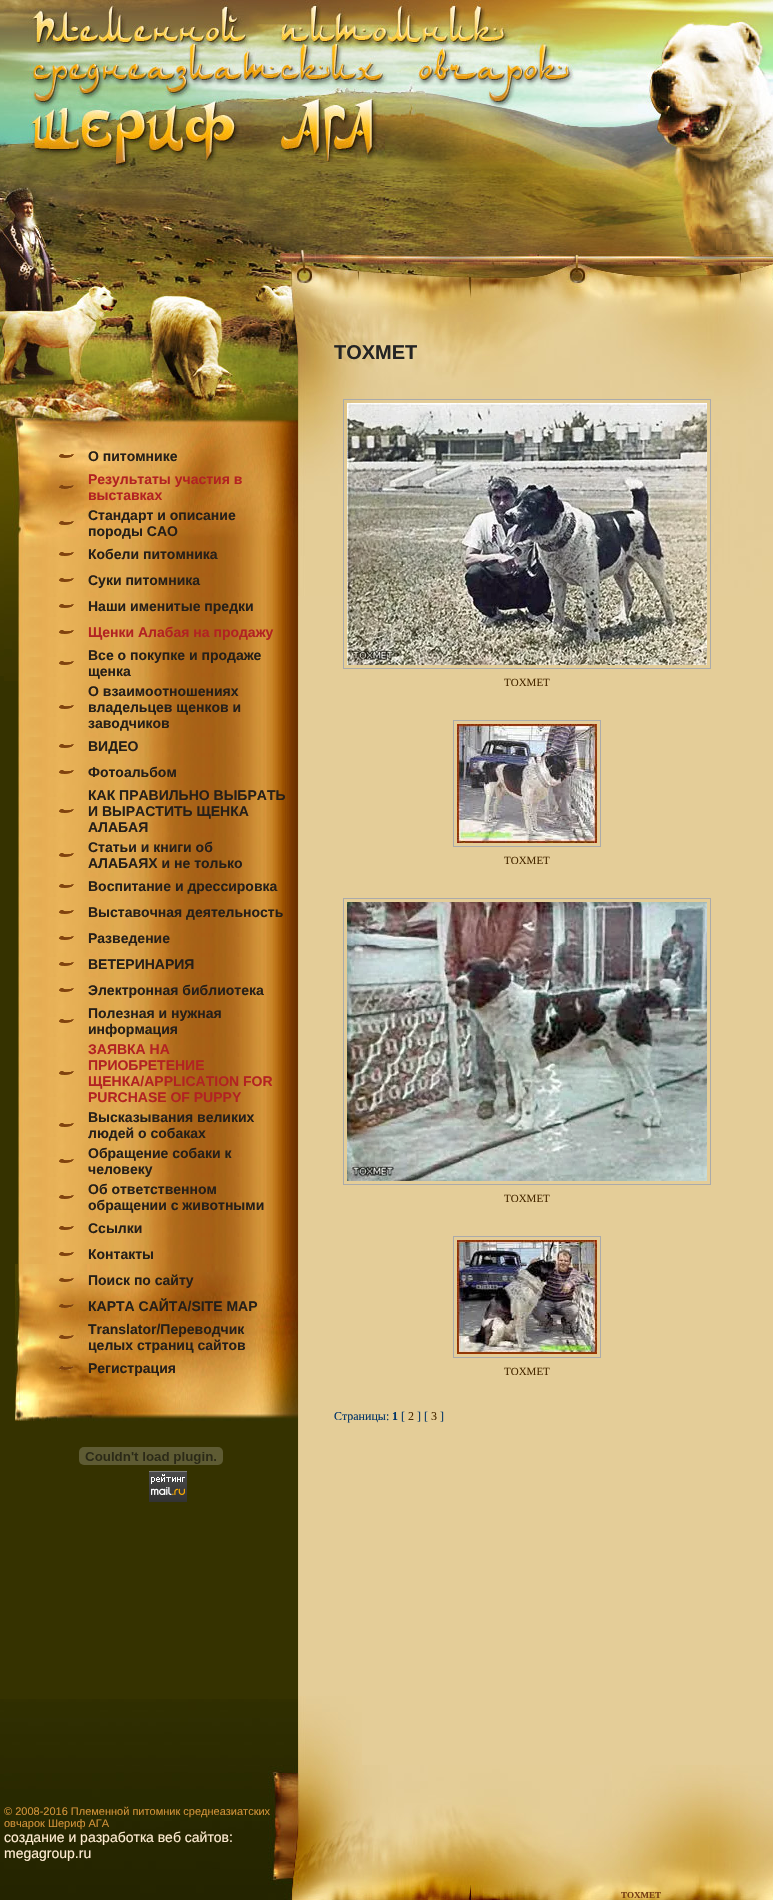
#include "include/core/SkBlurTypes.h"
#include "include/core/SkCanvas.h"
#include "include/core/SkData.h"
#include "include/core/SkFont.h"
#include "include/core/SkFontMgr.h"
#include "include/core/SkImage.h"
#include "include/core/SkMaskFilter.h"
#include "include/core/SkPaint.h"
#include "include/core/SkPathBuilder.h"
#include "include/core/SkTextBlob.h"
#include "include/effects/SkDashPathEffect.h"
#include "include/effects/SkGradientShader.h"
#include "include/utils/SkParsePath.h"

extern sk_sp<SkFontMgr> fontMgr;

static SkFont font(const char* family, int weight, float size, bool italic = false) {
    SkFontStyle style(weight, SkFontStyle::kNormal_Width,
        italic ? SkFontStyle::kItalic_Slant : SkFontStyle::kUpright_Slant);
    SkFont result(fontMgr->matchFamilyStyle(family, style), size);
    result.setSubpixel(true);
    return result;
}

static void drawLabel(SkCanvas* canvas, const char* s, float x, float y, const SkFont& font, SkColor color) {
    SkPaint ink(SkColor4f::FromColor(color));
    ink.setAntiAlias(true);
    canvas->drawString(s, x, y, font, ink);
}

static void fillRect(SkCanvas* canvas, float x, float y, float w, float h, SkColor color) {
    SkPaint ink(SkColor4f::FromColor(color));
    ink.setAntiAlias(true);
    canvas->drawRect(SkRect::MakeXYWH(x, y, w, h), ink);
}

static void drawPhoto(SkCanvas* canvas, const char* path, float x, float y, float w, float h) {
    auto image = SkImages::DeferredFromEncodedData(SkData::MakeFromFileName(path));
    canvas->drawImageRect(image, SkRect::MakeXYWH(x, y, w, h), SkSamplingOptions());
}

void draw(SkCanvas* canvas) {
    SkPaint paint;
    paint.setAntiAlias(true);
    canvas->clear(0xFF353200);
    drawPhoto(canvas, "assets/img1.png", 0, 0, 4, 324);
    drawPhoto(canvas, "assets/img2.png", 0, 324, 4, 352);
    drawPhoto(canvas, "assets/img3.png", 0, 1699, 4, 201);
    drawPhoto(canvas, "assets/img4.png", 4, 0, 245, 162);
    drawPhoto(canvas, "assets/img5.png", 249, 0, 245, 162);
    drawPhoto(canvas, "assets/img6.png", 494, 0, 245, 162);
    drawPhoto(canvas, "assets/img7.png", 739, 0, 34, 162);
    drawPhoto(canvas, "assets/img8.png", 4, 162, 245, 162);
    drawPhoto(canvas, "assets/img9.png", 249, 162, 245, 162);
    drawPhoto(canvas, "assets/img10.png", 494, 162, 245, 162);
    drawPhoto(canvas, "assets/img11.png", 739, 162, 34, 162);
    drawPhoto(canvas, "assets/img12.png", 4, 1699, 294, 66);
    drawPhoto(canvas, "assets/img13.png", 4, 324, 294, 109);
    drawPhoto(canvas, "assets/img14.png", 4, 433, 14, 248);
    drawPhoto(canvas, "assets/img15.png", 18, 547, 280, 717);
    drawPhoto(canvas, "assets/img16.png", 15, 1264, 283, 157);
    drawPhoto(canvas, "assets/img17.png", 12, 433, 286, 114);
    drawPhoto(canvas, "assets/img18.png", 59, 454, 15, 4);
    SkFont font1 = font("Liberation Sans", 700, 14);
    drawLabel(canvas, "О питомнике", 88, 461, font1, 0xFF261F18);
    drawPhoto(canvas, "assets/img19.png", 59, 485, 15, 4);
    drawLabel(canvas, "Результаты участия в", 88, 484, font1, 0xFFB22222);
    drawLabel(canvas, "выставках", 88, 500, font1, 0xFFB22222);
    drawPhoto(canvas, "assets/img20.png", 59, 521, 15, 4);
    drawLabel(canvas, "Стандарт и описание", 88, 520, font1, 0xFF261F18);
    drawLabel(canvas, "породы САО", 88, 536, font1, 0xFF261F18);
    drawPhoto(canvas, "assets/img21.png", 59, 552, 15, 4);
    drawLabel(canvas, "Кобели питомника", 88, 559, font1, 0xFF261F18);
    drawPhoto(canvas, "assets/img22.png", 59, 578, 15, 4);
    drawLabel(canvas, "Суки питомника", 88, 585, font1, 0xFF261F18);
    drawPhoto(canvas, "assets/img23.png", 59, 604, 15, 4);
    drawLabel(canvas, "Наши именитые предки", 88, 611, font1, 0xFF261F18);
    drawPhoto(canvas, "assets/img24.png", 59, 630, 15, 4);
    drawLabel(canvas, "Щенки Алабая на продажу", 88, 637, font1, 0xFFB22222);
    drawPhoto(canvas, "assets/img25.png", 59, 661, 15, 4);
    drawLabel(canvas, "Все о покупке и продаже", 88, 660, font1, 0xFF261F18);
    drawLabel(canvas, "щенка", 88, 676, font1, 0xFF261F18);
    drawPhoto(canvas, "assets/img26.png", 59, 705, 15, 4);
    drawLabel(canvas, "О взаимоотношениях", 88, 696, font1, 0xFF261F18);
    drawLabel(canvas, "владельцев щенков и", 88, 712, font1, 0xFF261F18);
    drawLabel(canvas, "заводчиков", 88, 728, font1, 0xFF261F18);
    drawPhoto(canvas, "assets/img23.png", 59, 744, 15, 4);
    drawLabel(canvas, "ВИДЕО", 88, 751, font1, 0xFF261F18);
    drawPhoto(canvas, "assets/img24.png", 59, 770, 15, 4);
    drawLabel(canvas, "Фотоальбом", 88, 777, font1, 0xFF261F18);
    drawPhoto(canvas, "assets/img27.png", 59, 809, 15, 4);
    drawLabel(canvas, "КАК ПРАВИЛЬНО ВЫБРАТЬ", 88, 800, font1, 0xFF261F18);
    drawLabel(canvas, "И ВЫРАСТИТЬ ЩЕНКА", 88, 816, font1, 0xFF261F18);
    drawLabel(canvas, "АЛАБАЯ", 88, 832, font1, 0xFF261F18);
    drawPhoto(canvas, "assets/img28.png", 59, 853, 15, 4);
    drawLabel(canvas, "Статьи и книги об", 88, 852, font1, 0xFF261F18);
    drawLabel(canvas, "АЛАБАЯХ и не только", 88, 868, font1, 0xFF261F18);
    drawPhoto(canvas, "assets/img23.png", 59, 884, 15, 4);
    drawLabel(canvas, "Воспитание и дрессировка", 88, 891, font1, 0xFF261F18);
    drawPhoto(canvas, "assets/img24.png", 59, 910, 15, 4);
    drawLabel(canvas, "Выставочная деятельность", 88, 917, font1, 0xFF261F18);
    drawPhoto(canvas, "assets/img29.png", 59, 936, 15, 4);
    drawLabel(canvas, "Разведение", 88, 943, font1, 0xFF261F18);
    drawPhoto(canvas, "assets/img30.png", 59, 962, 15, 4);
    drawLabel(canvas, "ВЕТЕРИНАРИЯ", 88, 969, font1, 0xFF261F18);
    drawPhoto(canvas, "assets/img31.png", 59, 988, 15, 4);
    drawLabel(canvas, "Электронная библиотека", 88, 995, font1, 0xFF261F18);
    drawPhoto(canvas, "assets/img25.png", 59, 1019, 15, 4);
    drawLabel(canvas, "Полезная и нужная", 88, 1018, font1, 0xFF261F18);
    drawLabel(canvas, "информация", 88, 1034, font1, 0xFF261F18);
    drawPhoto(canvas, "assets/img32.png", 59, 1071, 15, 4);
    drawLabel(canvas, "ЗАЯВКА НА", 88, 1054, font1, 0xFFB22222);
    drawLabel(canvas, "ПРИОБРЕТЕНИЕ", 88, 1070, font1, 0xFFB22222);
    drawLabel(canvas, "ЩЕНКА/APPLICATION FOR", 88, 1086, font1, 0xFFB22222);
    drawLabel(canvas, "PURCHASE OF PUPPY", 88, 1102, font1, 0xFFB22222);
    drawPhoto(canvas, "assets/img33.png", 59, 1123, 15, 4);
    drawLabel(canvas, "Высказывания великих", 88, 1122, font1, 0xFF261F18);
    drawLabel(canvas, "людей о собаках", 88, 1138, font1, 0xFF261F18);
    drawPhoto(canvas, "assets/img25.png", 59, 1159, 15, 4);
    drawLabel(canvas, "Обращение собаки к", 88, 1158, font1, 0xFF261F18);
    drawLabel(canvas, "человеку", 88, 1174, font1, 0xFF261F18);
    drawPhoto(canvas, "assets/img34.png", 59, 1195, 15, 4);
    drawLabel(canvas, "Об ответственном", 88, 1194, font1, 0xFF261F18);
    drawLabel(canvas, "обращении с животными", 88, 1210, font1, 0xFF261F18);
    drawPhoto(canvas, "assets/img31.png", 59, 1226, 15, 4);
    drawLabel(canvas, "Ссылки", 88, 1233, font1, 0xFF261F18);
    drawPhoto(canvas, "assets/img21.png", 59, 1252, 15, 4);
    drawLabel(canvas, "Контакты", 88, 1259, font1, 0xFF261F18);
    drawPhoto(canvas, "assets/img35.png", 59, 1278, 15, 4);
    drawLabel(canvas, "Поиск по сайту", 88, 1285, font1, 0xFF261F18);
    drawPhoto(canvas, "assets/img36.png", 59, 1304, 15, 4);
    drawLabel(canvas, "КАРТА САЙТА/SITE MAP", 88, 1311, font1, 0xFF261F18);
    drawPhoto(canvas, "assets/img37.png", 59, 1335, 15, 4);
    drawLabel(canvas, "Translator/Переводчик", 88, 1334, font1, 0xFF261F18);
    drawLabel(canvas, "целых страниц сайтов", 88, 1350, font1, 0xFF261F18);
    drawPhoto(canvas, "assets/img38.png", 59, 1366, 15, 4);
    drawLabel(canvas, "Регистрация", 88, 1373, font1, 0xFF261F18);
    drawPhoto(canvas, "assets/img39.png", 79, 1447, 144, 18);
    drawPhoto(canvas, "assets/img40.png", 149, 1471, 38, 31);
    fillRect(canvas, 299, 596, 474, 1169, 0xFFE4CD98);
    fillRect(canvas, 298, 596, 1, 1100, 0xFFDBC48E);
    drawPhoto(canvas, "assets/img41.png", 298, 324, 475, 272);
    drawPhoto(canvas, "assets/img42.png", 298, 1696, 64, 69);
    SkFont font2 = font("Liberation Sans", 700, 20);
    drawLabel(canvas, "ТОХМЕТ", 334, 359, font2, 0xFF242424);
    paint.setStroke(true);
    paint.setStrokeWidth(1);
    paint.setColor(0xFFAAAAAA);
    canvas->drawRect(SkRect::MakeXYWH(343.5f, 399.5f, 367, 269), paint);
    drawPhoto(canvas, "assets/img43.png", 347, 403, 360, 262);
    SkFont font3 = font("Liberation Serif", 400, 11);
    drawLabel(canvas, "ТОХМЕТ", 504, 686, font3, 0xFF492A00);
    canvas->drawRect(SkRect::MakeXYWH(453.5f, 720.5f, 147, 126), paint);
    drawPhoto(canvas, "assets/img44.png", 457, 724, 140, 119);
    drawLabel(canvas, "ТОХМЕТ", 504, 864, font3, 0xFF492A00);
    canvas->drawRect(SkRect::MakeXYWH(343.5f, 898.5f, 367, 286), paint);
    drawPhoto(canvas, "assets/img45.png", 347, 902, 360, 279);
    drawLabel(canvas, "ТОХМЕТ", 504, 1202, font3, 0xFF492A00);
    canvas->drawRect(SkRect::MakeXYWH(453.5f, 1236.5f, 147, 121), paint);
    drawPhoto(canvas, "assets/img46.png", 457, 1240, 140, 114);
    drawLabel(canvas, "ТОХМЕТ", 504, 1375, font3, 0xFF492A00);
    SkFont font4 = font("Liberation Serif", 400, 12);
    drawLabel(canvas, "Страницы:", 334, 1420, font4, 0xFF003366);
    SkFont font5 = font("Liberation Serif", 700, 12);
    drawLabel(canvas, "1", 392, 1420, font5, 0xFF003366);
    drawLabel(canvas, "[", 401, 1420, font4, 0xFF003366);
    drawLabel(canvas, "2", 408, 1420, font4, 0xFF492A00);
    drawLabel(canvas, "] [", 417, 1420, font4, 0xFF003366);
    drawLabel(canvas, "3", 431, 1420, font4, 0xFF492A00);
    drawLabel(canvas, "]", 440, 1420, font4, 0xFF003366);
    drawPhoto(canvas, "assets/img47.png", 4, 1765, 769, 135);
    SkFont font6 = font("Liberation Sans", 400, 11);
    drawLabel(canvas, "© 2008-2016 Племенной питомник среднеазиатских", 4, 1815, font6, 0xFFD09138);
    drawLabel(canvas, "овчарок Шериф АГА", 4, 1827, font6, 0xFFD09138);
    SkFont font7 = font("Liberation Sans", 400, 14);
    drawLabel(canvas, "создание и разработка веб сайтов:", 4, 1842, font7, 0xFFFFECD2);
    drawLabel(canvas, "megagroup.ru", 4, 1858, font7, 0xFFFFECD2);
    SkFont font8 = font("Liberation Serif", 700, 9);
    drawLabel(canvas, "ТОХМЕТ", 621, 1898, font8, 0xFF763D12);
}
